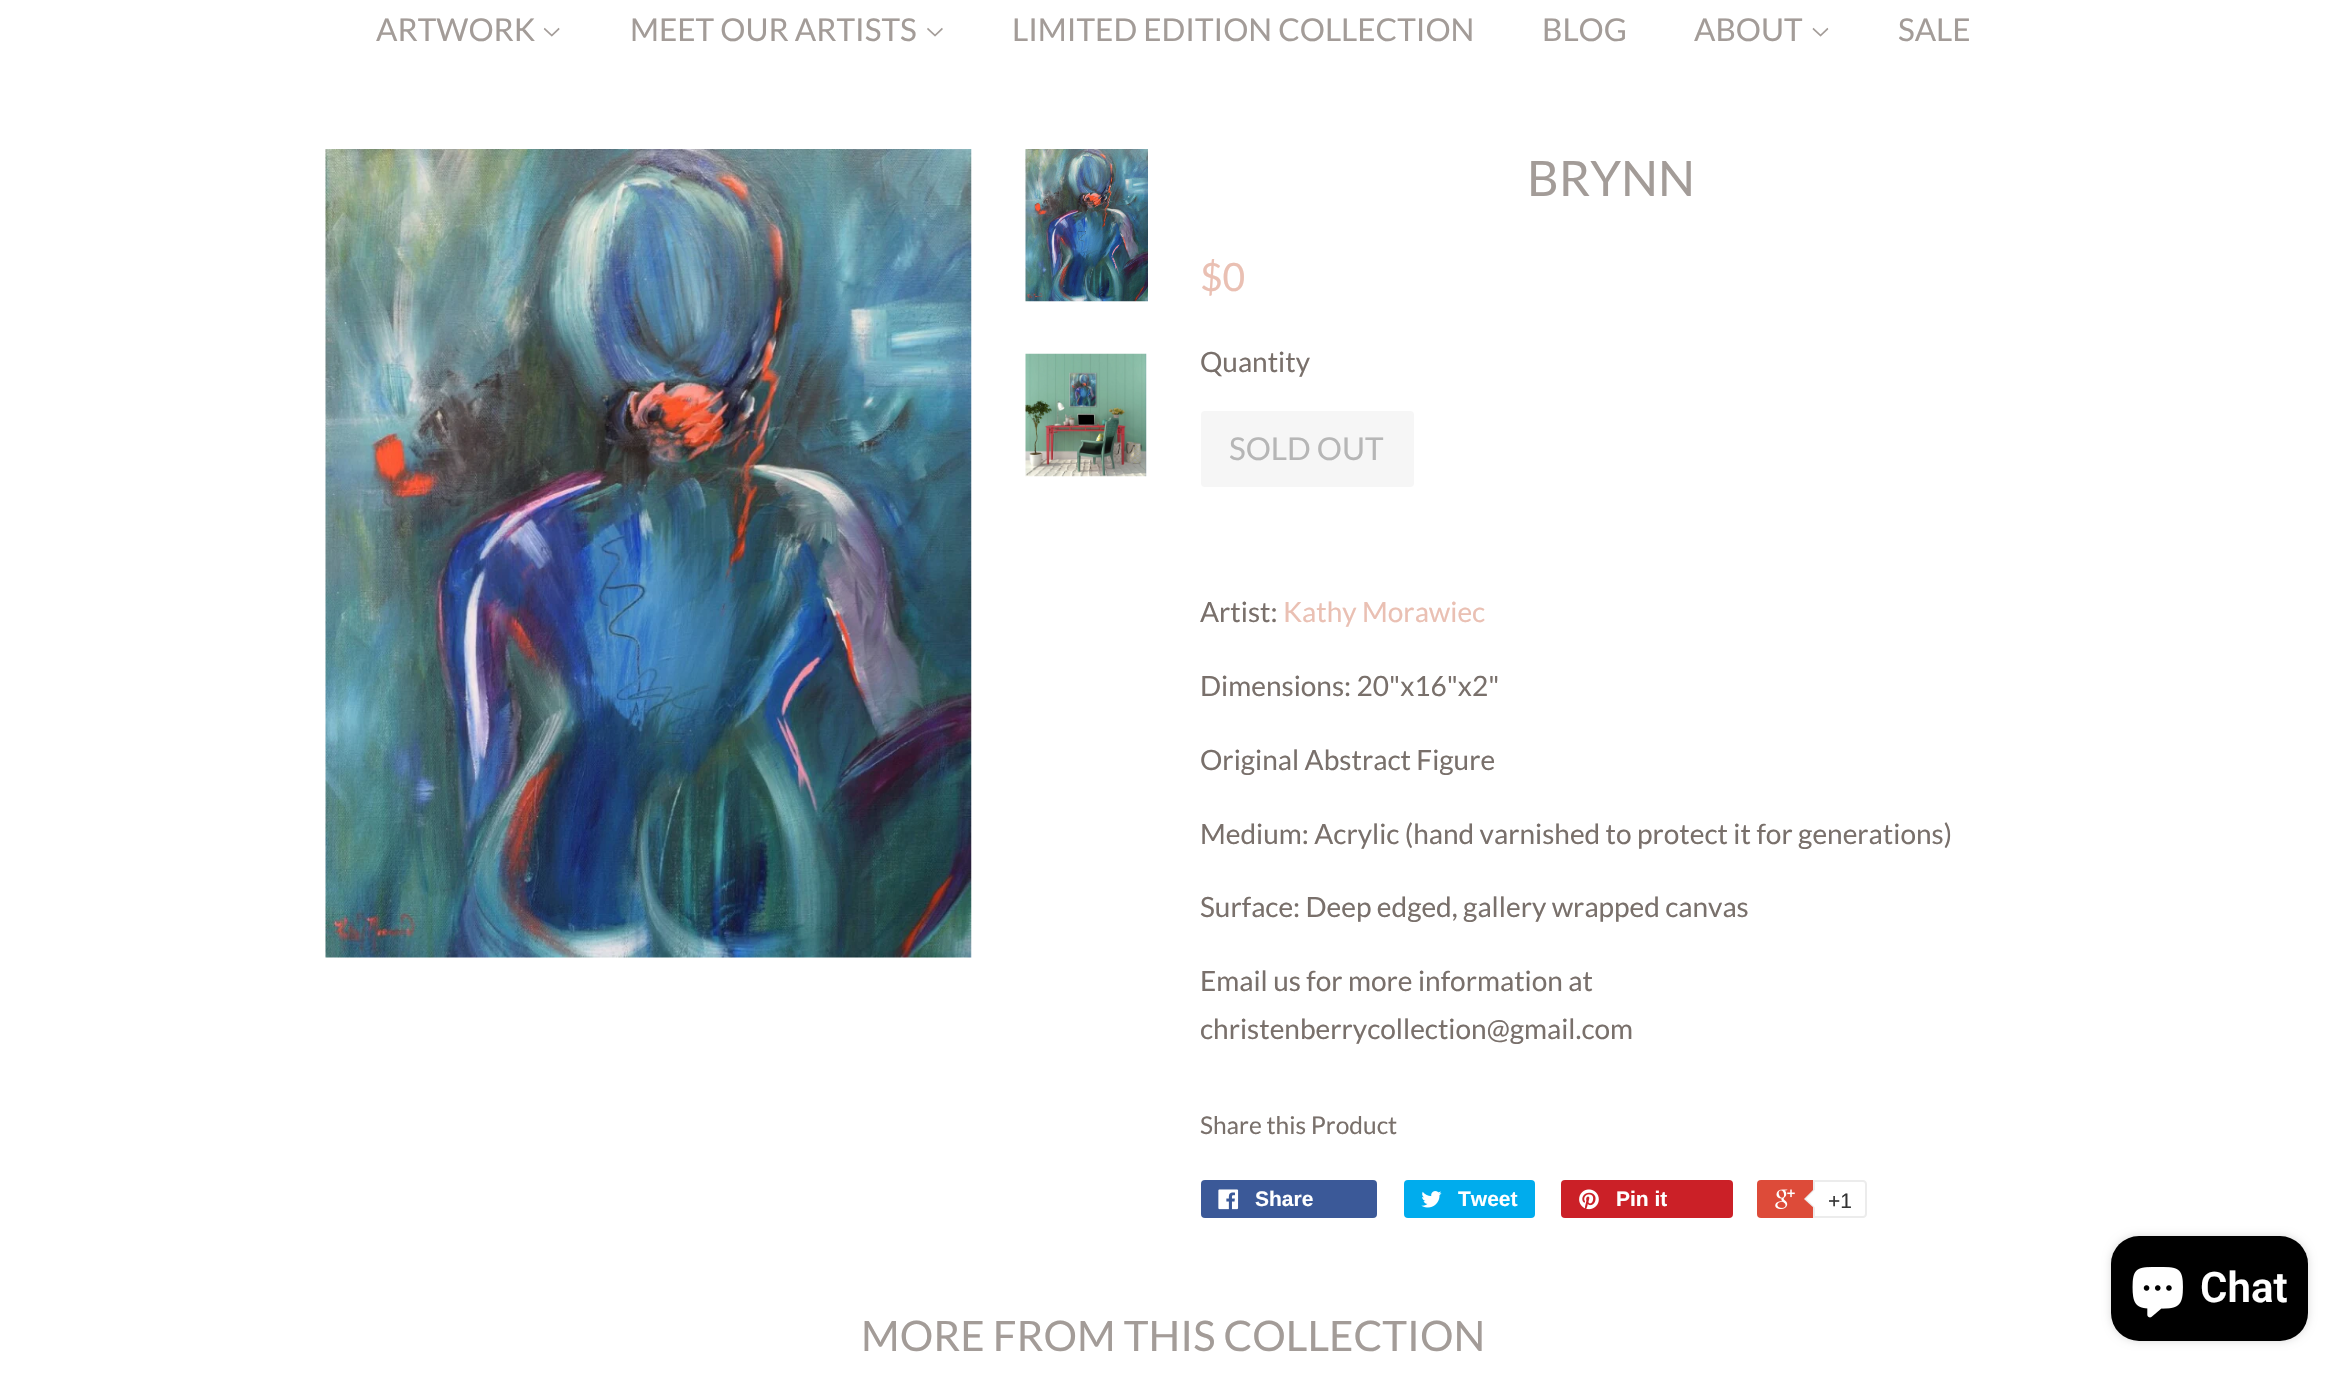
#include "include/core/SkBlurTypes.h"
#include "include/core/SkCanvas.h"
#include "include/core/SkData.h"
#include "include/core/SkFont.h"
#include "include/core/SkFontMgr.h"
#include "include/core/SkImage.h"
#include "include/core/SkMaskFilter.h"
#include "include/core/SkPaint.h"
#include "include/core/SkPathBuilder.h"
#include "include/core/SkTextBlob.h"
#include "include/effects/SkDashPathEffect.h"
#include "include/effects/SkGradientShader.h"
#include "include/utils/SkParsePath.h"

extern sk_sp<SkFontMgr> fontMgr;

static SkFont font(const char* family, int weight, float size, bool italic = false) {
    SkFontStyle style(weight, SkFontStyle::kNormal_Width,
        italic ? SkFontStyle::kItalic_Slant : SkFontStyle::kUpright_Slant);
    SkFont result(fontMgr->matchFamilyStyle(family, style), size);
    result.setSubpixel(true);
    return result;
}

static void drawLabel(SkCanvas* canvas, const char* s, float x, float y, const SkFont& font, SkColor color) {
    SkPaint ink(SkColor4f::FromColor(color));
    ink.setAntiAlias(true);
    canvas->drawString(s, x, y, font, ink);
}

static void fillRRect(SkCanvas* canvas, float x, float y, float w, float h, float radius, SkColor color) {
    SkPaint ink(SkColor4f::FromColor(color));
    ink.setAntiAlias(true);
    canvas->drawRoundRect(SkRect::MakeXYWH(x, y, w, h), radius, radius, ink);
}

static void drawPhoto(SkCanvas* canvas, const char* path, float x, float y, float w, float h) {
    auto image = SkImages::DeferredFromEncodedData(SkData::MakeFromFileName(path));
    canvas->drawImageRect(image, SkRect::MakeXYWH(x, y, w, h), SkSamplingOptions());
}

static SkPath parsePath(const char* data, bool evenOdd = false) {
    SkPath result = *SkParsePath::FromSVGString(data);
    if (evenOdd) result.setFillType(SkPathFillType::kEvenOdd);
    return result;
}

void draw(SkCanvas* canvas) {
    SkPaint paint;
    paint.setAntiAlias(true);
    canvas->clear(0xFFFFFFFF);
    SkFont font1 = font("Lato", 400, 31.5f);
    drawLabel(canvas, "ARTWORK", 376, 41, font1, 0xFFA39C98);
    drawPhoto(canvas, "assets/img1.png", 543, 27, 17, 10);
    drawLabel(canvas, "MEET OUR ARTISTS", 630, 41, font1, 0xFFA39C98);
    drawPhoto(canvas, "assets/img2.png", 927, 27, 16, 10);
    drawLabel(canvas, "LIMITED EDITION COLLECTION", 1012, 41, font1, 0xFFA39C98);
    drawLabel(canvas, "BLOG", 1542, 41, font1, 0xFFA39C98);
    drawLabel(canvas, "ABOUT", 1694, 41, font1, 0xFFA39C98);
    drawPhoto(canvas, "assets/img3.png", 1812, 27, 17, 10);
    drawLabel(canvas, "SALE", 1898, 41, font1, 0xFFA39C98);
    drawPhoto(canvas, "assets/img4.png", 325, 149, 647, 809);
    drawPhoto(canvas, "assets/img5.png", 1025, 149, 123, 153);
    drawPhoto(canvas, "assets/img6.png", 1025, 353, 122, 124);
    SkFont font2 = font("Lato", 400, 49);
    drawLabel(canvas, "BRYNN", 1527, 196, font2, 0xFFA39C98);
    SkFont font3 = font("Lato", 400, 39);
    drawLabel(canvas, "$0", 1200, 291, font3, 0xFFEAC0B3);
    SkFont font4 = font("Lato", 400, 28);
    drawLabel(canvas, "Quantity", 1200, 372, font4, 0xFF79706B);
    fillRRect(canvas, 1201, 411, 213, 76, 4, 0xFFF6F6F6);
    drawLabel(canvas, "SOLD OUT", 1229, 460, font1, 0xFFB6B6B6);
    drawLabel(canvas, "Artist:", 1200, 622, font4, 0xFF79706B);
    drawLabel(canvas, "Kathy Morawiec", 1283, 622, font4, 0xFFEAC0B3);
    drawLabel(canvas, "Dimensions: 20\"x16\"x2\"", 1200, 696, font4, 0xFF79706B);
    drawLabel(canvas, "Original Abstract Figure", 1200, 770, font4, 0xFF79706B);
    drawLabel(canvas, "Medium: Acrylic (hand varnished to protect it for generations)", 1200, 844, font4, 0xFF79706B);
    drawLabel(canvas, "Surface: Deep edged, gallery wrapped canvas", 1200, 917, font4, 0xFF79706B);
    drawLabel(canvas, "Email us for more information at", 1200, 991, font4, 0xFF79706B);
    drawLabel(canvas, "christenberrycollection@gmail.com", 1200, 1039, font4, 0xFF79706B);
    SkFont font5 = font("Lato", 400, 24.5f);
    drawLabel(canvas, "Share this Product", 1200, 1134, font5, 0xFF79706B);
    fillRRect(canvas, 1201, 1180, 176, 38, 4, 0xFF3B5998);
    drawPhoto(canvas, "assets/img7.png", 1218, 1189, 21, 21);
    SkFont font6 = font("Liberation Sans", 700, 21);
    drawLabel(canvas, "Share", 1255, 1206, font6, 0xFFFFFFFF);
    fillRRect(canvas, 1404, 1180, 131, 38, 4, 0xFF00ACED);
    drawPhoto(canvas, "assets/img8.png", 1421, 1191, 21, 17);
    drawLabel(canvas, "Tweet", 1458, 1206, font6, 0xFFFFFFFF);
    fillRRect(canvas, 1561, 1180, 172, 38, 4, 0xFFCB2027);
    drawPhoto(canvas, "assets/img9.png", 1579, 1189, 20, 21);
    drawLabel(canvas, "Pin it", 1616, 1206, font6, 0xFFFFFFFF);
    fillRRect(canvas, 1757, 1180, 107, 38, 4, 0xFFDD4B39);
    drawPhoto(canvas, "assets/img10.png", 1775, 1189, 20, 20);
    paint.setColor(0xFFFFFFFF);
    canvas->drawPath(parsePath("M1814 1181H1863C1864.5 1181 1866 1182.5 1866 1184V1214C1866 1215.5 1864.5 1217 1863 1217H1814Z"), paint);
    paint.setStroke(true);
    paint.setStrokeWidth(2);
    paint.setColor(0xFFECECEC);
    canvas->drawPath(parsePath("M1814 1181H1863C1864.5 1181 1866 1182.5 1866 1184V1214C1866 1215.5 1864.5 1217 1863 1217H1814Z"), paint);
    paint.setStroke(false);
    canvas->drawPath(parsePath("M1815 1188V1209L1804 1199Z"), paint);
    paint.setColor(0xFFFFFFFF);
    canvas->drawPath(parsePath("M1816.5 1188V1209L1806 1199Z"), paint);
    SkFont font7 = font("Liberation Sans", 400, 21);
    drawLabel(canvas, "+1", 1828, 1208, font7, 0xFF333333);
    SkFont font8 = font("Lato", 400, 42);
    drawLabel(canvas, "MORE FROM THIS COLLECTION", 861, 1351, font8, 0xFFA39C98);
    paint.setColor(0x26000000);
    paint.setMaskFilter(SkMaskFilter::MakeBlur(kNormal_SkBlurStyle, 4.5f));
    canvas->drawRoundRect(SkRect::MakeXYWH(2111, 1236, 197, 105), 28, 28, paint);
    paint.setMaskFilter(nullptr);
    fillRRect(canvas, 2111, 1236, 197, 105, 28, 0xFF000000);
    drawPhoto(canvas, "assets/img11.png", 2132, 1267, 51, 51);
    SkFont font9 = font("Roboto", 600, 42);
    drawLabel(canvas, "Chat", 2200, 1302, font9, 0xFFFFFFFF);
}
